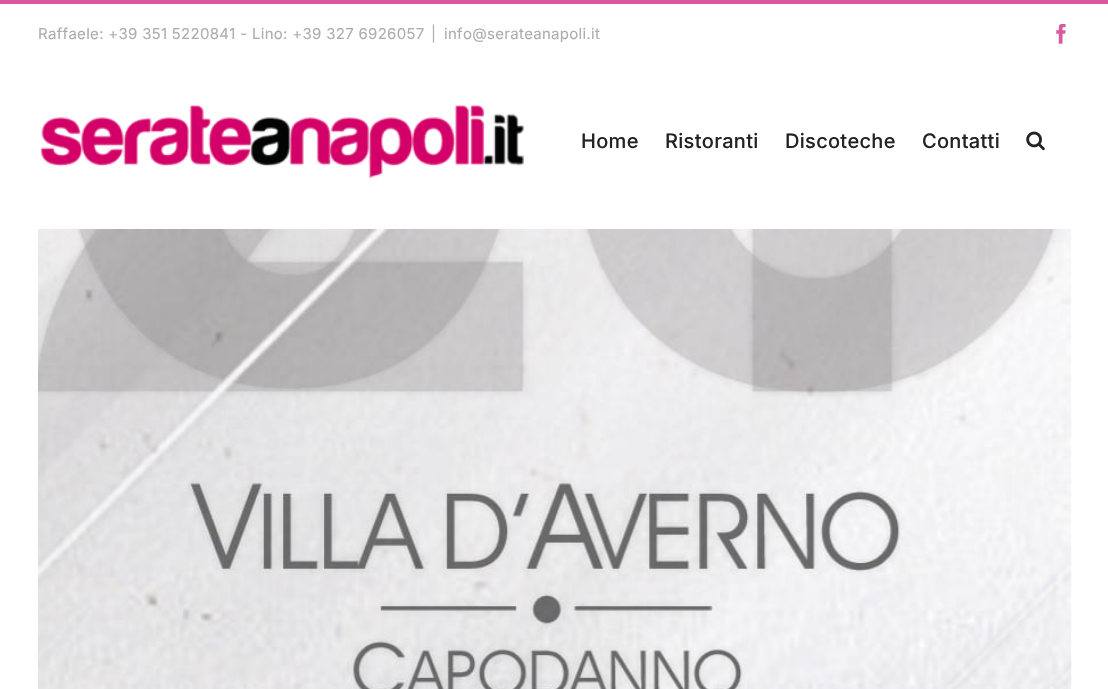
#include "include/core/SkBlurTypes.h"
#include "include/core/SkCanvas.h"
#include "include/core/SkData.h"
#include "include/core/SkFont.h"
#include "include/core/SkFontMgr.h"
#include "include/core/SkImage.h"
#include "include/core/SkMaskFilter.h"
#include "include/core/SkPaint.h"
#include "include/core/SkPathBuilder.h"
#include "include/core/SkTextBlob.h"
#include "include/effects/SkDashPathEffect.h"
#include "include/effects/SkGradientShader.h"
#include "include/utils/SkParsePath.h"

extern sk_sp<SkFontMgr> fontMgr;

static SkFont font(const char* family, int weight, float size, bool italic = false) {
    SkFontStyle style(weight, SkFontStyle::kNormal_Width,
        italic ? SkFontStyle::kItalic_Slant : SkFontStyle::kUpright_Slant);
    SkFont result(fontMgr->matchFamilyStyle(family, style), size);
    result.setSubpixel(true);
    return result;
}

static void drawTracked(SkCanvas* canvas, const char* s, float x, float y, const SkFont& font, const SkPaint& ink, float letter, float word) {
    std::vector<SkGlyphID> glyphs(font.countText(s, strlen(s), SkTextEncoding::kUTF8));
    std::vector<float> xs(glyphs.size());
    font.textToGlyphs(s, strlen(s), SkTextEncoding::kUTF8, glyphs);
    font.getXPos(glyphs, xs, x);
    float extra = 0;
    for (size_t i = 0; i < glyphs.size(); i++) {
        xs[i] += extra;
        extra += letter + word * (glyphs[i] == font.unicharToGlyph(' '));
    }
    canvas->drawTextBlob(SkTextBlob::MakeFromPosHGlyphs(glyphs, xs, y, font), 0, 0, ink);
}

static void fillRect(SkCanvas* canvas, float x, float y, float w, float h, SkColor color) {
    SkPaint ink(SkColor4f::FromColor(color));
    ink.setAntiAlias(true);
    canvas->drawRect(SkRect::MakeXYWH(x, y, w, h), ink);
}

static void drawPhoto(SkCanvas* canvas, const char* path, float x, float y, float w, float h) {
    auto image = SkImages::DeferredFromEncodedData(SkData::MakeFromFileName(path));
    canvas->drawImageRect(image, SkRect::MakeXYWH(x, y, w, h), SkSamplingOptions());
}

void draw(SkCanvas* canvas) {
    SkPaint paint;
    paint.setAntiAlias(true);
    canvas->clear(0xFFFFFFFF);
    fillRect(canvas, 0, 0, 1108, 4, 0xFFD9599F);
    SkFont font1 = font("Inter", 400, 15);
    paint.setColor(0xFFADADAD);
    drawTracked(canvas, "Raffaele: +39 351 5220841 - Lino: +39 327 6926057", 38, 39, font1, paint, 0.3f, 0);
    drawTracked(canvas, "|", 431, 39, font1, paint, 0.3f, 0);
    drawTracked(canvas, "info@serateanapoli.it", 444, 39, font1, paint, 0.3f, 0);
    drawPhoto(canvas, "assets/img1.png", 1056, 24, 10, 20);
    drawPhoto(canvas, "assets/img2.png", 40, 104, 485, 75);
    SkFont font2 = font("Inter", 500, 20);
    paint.setColor(0xFF232323);
    drawTracked(canvas, "Home", 581, 148, font2, paint, 0.3f, 0);
    drawTracked(canvas, "Ristoranti", 665, 148, font2, paint, 0.3f, 0);
    drawTracked(canvas, "Discoteche", 785, 148, font2, paint, 0.3f, 0);
    drawTracked(canvas, "Contatti", 922, 148, font2, paint, 0.3f, 0);
    drawPhoto(canvas, "assets/img3.png", 1026, 131, 19, 20);
    drawPhoto(canvas, "assets/img4.png", 38, 229, 1034, 460);
}
